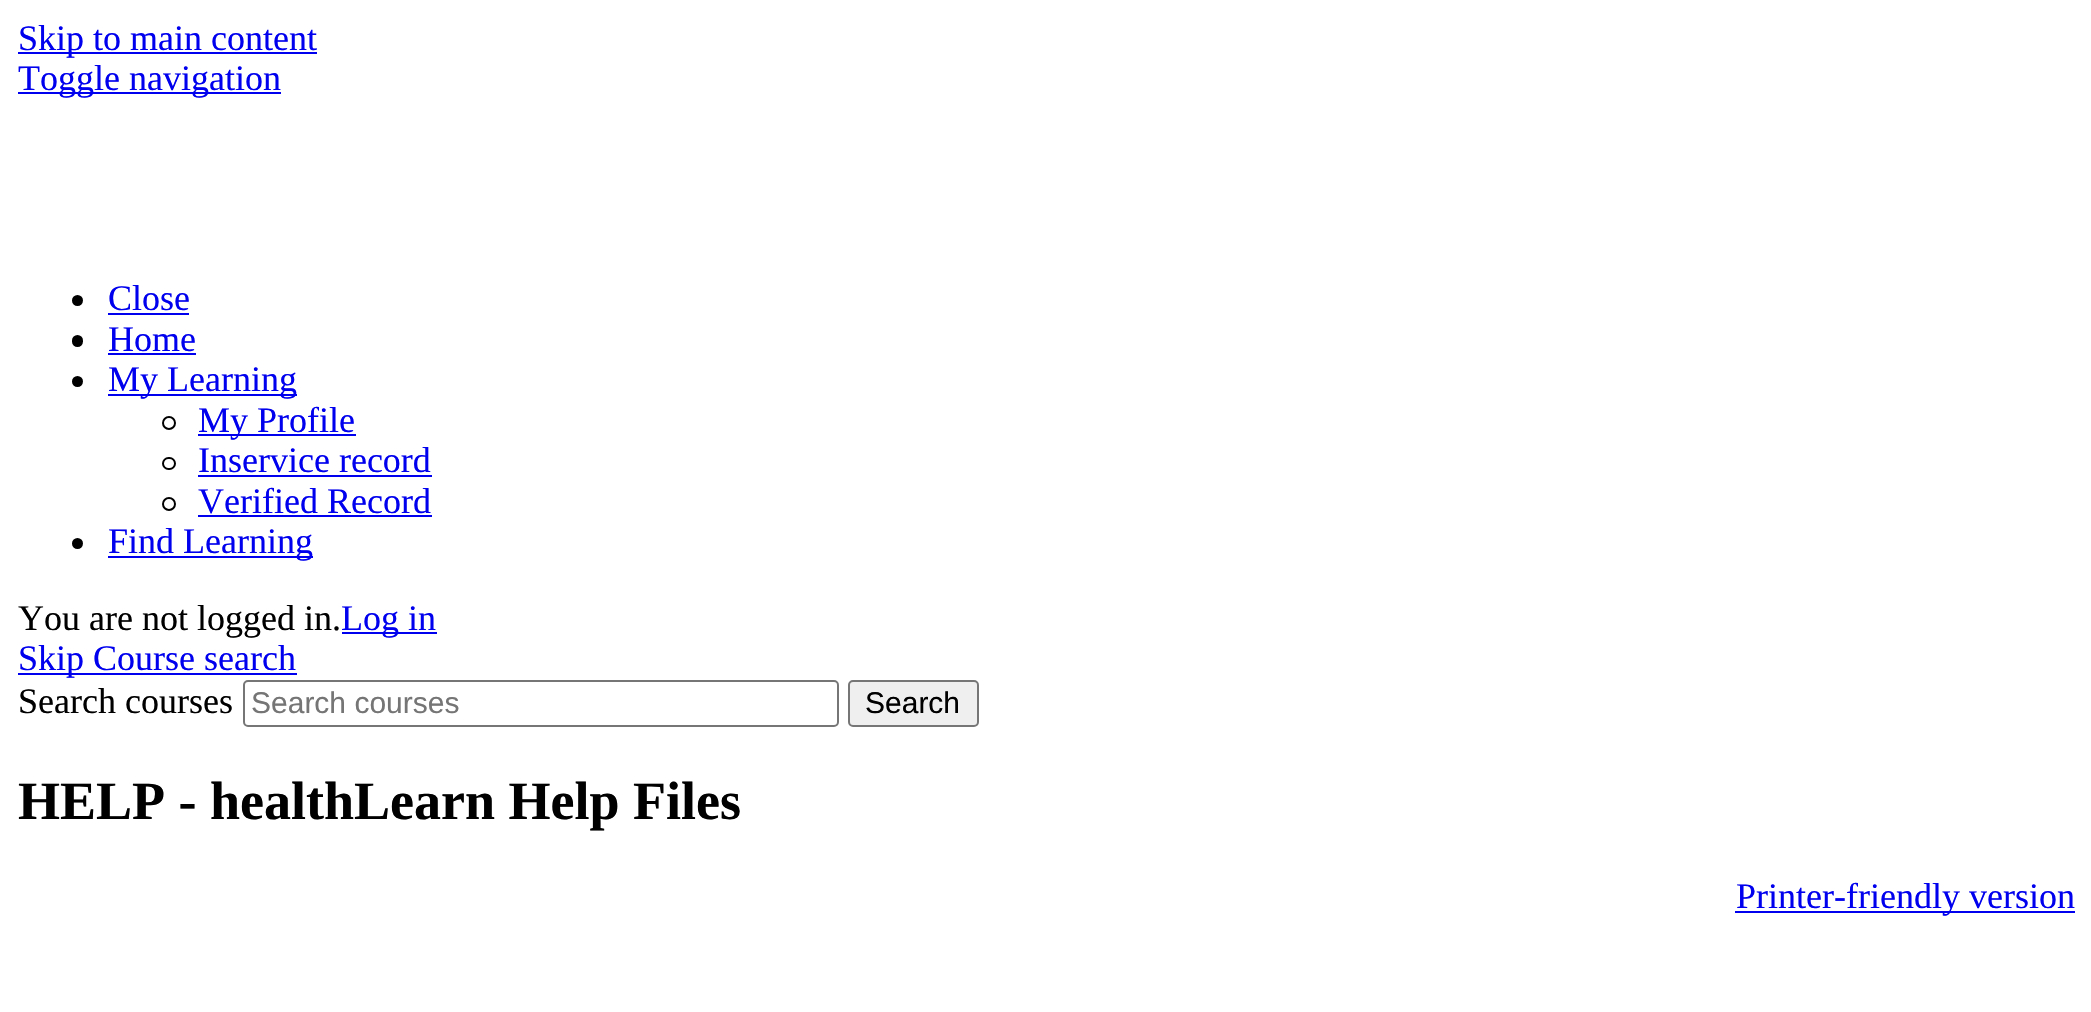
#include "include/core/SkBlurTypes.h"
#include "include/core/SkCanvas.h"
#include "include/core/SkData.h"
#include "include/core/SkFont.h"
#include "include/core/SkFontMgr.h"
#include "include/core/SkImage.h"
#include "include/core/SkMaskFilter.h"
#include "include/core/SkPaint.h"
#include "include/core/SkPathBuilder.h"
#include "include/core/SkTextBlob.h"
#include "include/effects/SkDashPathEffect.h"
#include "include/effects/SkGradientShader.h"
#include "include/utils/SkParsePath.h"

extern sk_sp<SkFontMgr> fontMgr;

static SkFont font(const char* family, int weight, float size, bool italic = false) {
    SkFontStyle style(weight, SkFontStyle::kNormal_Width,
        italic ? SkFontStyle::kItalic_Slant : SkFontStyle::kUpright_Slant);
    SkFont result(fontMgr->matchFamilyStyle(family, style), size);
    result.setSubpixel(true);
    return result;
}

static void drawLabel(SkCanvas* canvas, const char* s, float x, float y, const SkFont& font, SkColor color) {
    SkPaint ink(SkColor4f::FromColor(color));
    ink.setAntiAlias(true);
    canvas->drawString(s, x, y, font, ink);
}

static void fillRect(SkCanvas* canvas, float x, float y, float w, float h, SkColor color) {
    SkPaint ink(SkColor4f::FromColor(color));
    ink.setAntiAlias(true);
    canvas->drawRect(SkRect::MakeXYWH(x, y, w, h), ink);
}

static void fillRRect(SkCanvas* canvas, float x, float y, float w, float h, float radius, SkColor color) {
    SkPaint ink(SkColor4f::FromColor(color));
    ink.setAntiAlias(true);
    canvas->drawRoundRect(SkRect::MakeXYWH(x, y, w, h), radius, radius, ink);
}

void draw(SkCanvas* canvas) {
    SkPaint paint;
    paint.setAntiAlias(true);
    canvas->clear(0xFFFFFFFF);
    fillRect(canvas, 18, 52, 299, 2, 0xFF0000EE);
    SkFont font1 = font("Liberation Serif", 400, 36);
    drawLabel(canvas, "Skip to main content", 18, 50, font1, 0xFF0000EE);
    fillRect(canvas, 18, 92, 263, 2, 0xFF0000EE);
    drawLabel(canvas, "Toggle navigation", 18, 90, font1, 0xFF0000EE);
    paint.setColor(0xFF000000);
    canvas->drawCircle(77.5f, 300.5f, 5.5f, paint);
    drawLabel(canvas, "Close", 108, 310, font1, 0xFF0000EE);
    fillRect(canvas, 108, 313, 81, 2, 0xFF0000EE);
    fillRRect(canvas, 72, 335, 11, 12, 5.5f, 0xFF000000);
    drawLabel(canvas, "Home", 108, 351, font1, 0xFF0000EE);
    fillRect(canvas, 108, 353, 88, 2, 0xFF0000EE);
    canvas->drawCircle(77.5f, 381.5f, 5.5f, paint);
    fillRect(canvas, 108, 394, 189, 2, 0xFF0000EE);
    drawLabel(canvas, "My Learning", 108, 391, font1, 0xFF0000EE);
    paint.setStroke(true);
    paint.setStrokeWidth(2);
    canvas->drawCircle(169, 423, 6, paint);
    fillRect(canvas, 198, 434, 158, 2, 0xFF0000EE);
    drawLabel(canvas, "My Profile", 198, 432, font1, 0xFF0000EE);
    canvas->drawRoundRect(SkRect::MakeXYWH(163, 458, 12, 11), 5.5f, 5.5f, paint);
    drawLabel(canvas, "Inservice record", 198, 472, font1, 0xFF0000EE);
    fillRect(canvas, 198, 475, 234, 2, 0xFF0000EE);
    canvas->drawCircle(169, 504, 6, paint);
    drawLabel(canvas, "Verified Record", 198, 513, font1, 0xFF0000EE);
    fillRect(canvas, 198, 515, 234, 2, 0xFF0000EE);
    paint.setStroke(false);
    canvas->drawCircle(77.5f, 543.5f, 5.5f, paint);
    fillRect(canvas, 108, 556, 205, 2, 0xFF0000EE);
    drawLabel(canvas, "Find Learning", 108, 553, font1, 0xFF0000EE);
    drawLabel(canvas, "You are not logged in.", 18, 630, font1, 0xFF000000);
    fillRect(canvas, 342, 632, 95, 2, 0xFF0000EE);
    drawLabel(canvas, "Log in", 341, 630, font1, 0xFF0000EE);
    fillRect(canvas, 18, 673, 279, 2, 0xFF0000EE);
    drawLabel(canvas, "Skip Course search", 18, 670, font1, 0xFF0000EE);
    drawLabel(canvas, "Search courses", 18, 713, font1, 0xFF000000);
    paint.setStroke(true);
    paint.setColor(0xFF767676);
    canvas->drawRoundRect(SkRect::MakeXYWH(244, 681, 594, 45), 4, 4, paint);
    SkFont font2 = font("Liberation Sans", 400, 30);
    drawLabel(canvas, "Search courses", 251, 713, font2, 0xFF757575);
    paint.setStroke(false);
    paint.setColor(0xFFEFEFEF);
    canvas->drawRoundRect(SkRect::MakeXYWH(849, 681, 129, 45), 4, 4, paint);
    paint.setStroke(true);
    paint.setColor(0xFF767676);
    canvas->drawRoundRect(SkRect::MakeXYWH(849, 681, 129, 45), 4, 4, paint);
    drawLabel(canvas, "Search", 865, 713, font2, 0xFF000000);
    SkFont font3 = font("Liberation Serif", 700, 54);
    drawLabel(canvas, "HELP - healthLearn Help Files", 18, 819, font3, 0xFF000000);
    fillRect(canvas, 1735, 911, 340, 2, 0xFF0000EE);
    drawLabel(canvas, "Printer-friendly version", 1736, 908, font1, 0xFF0000EE);
}
